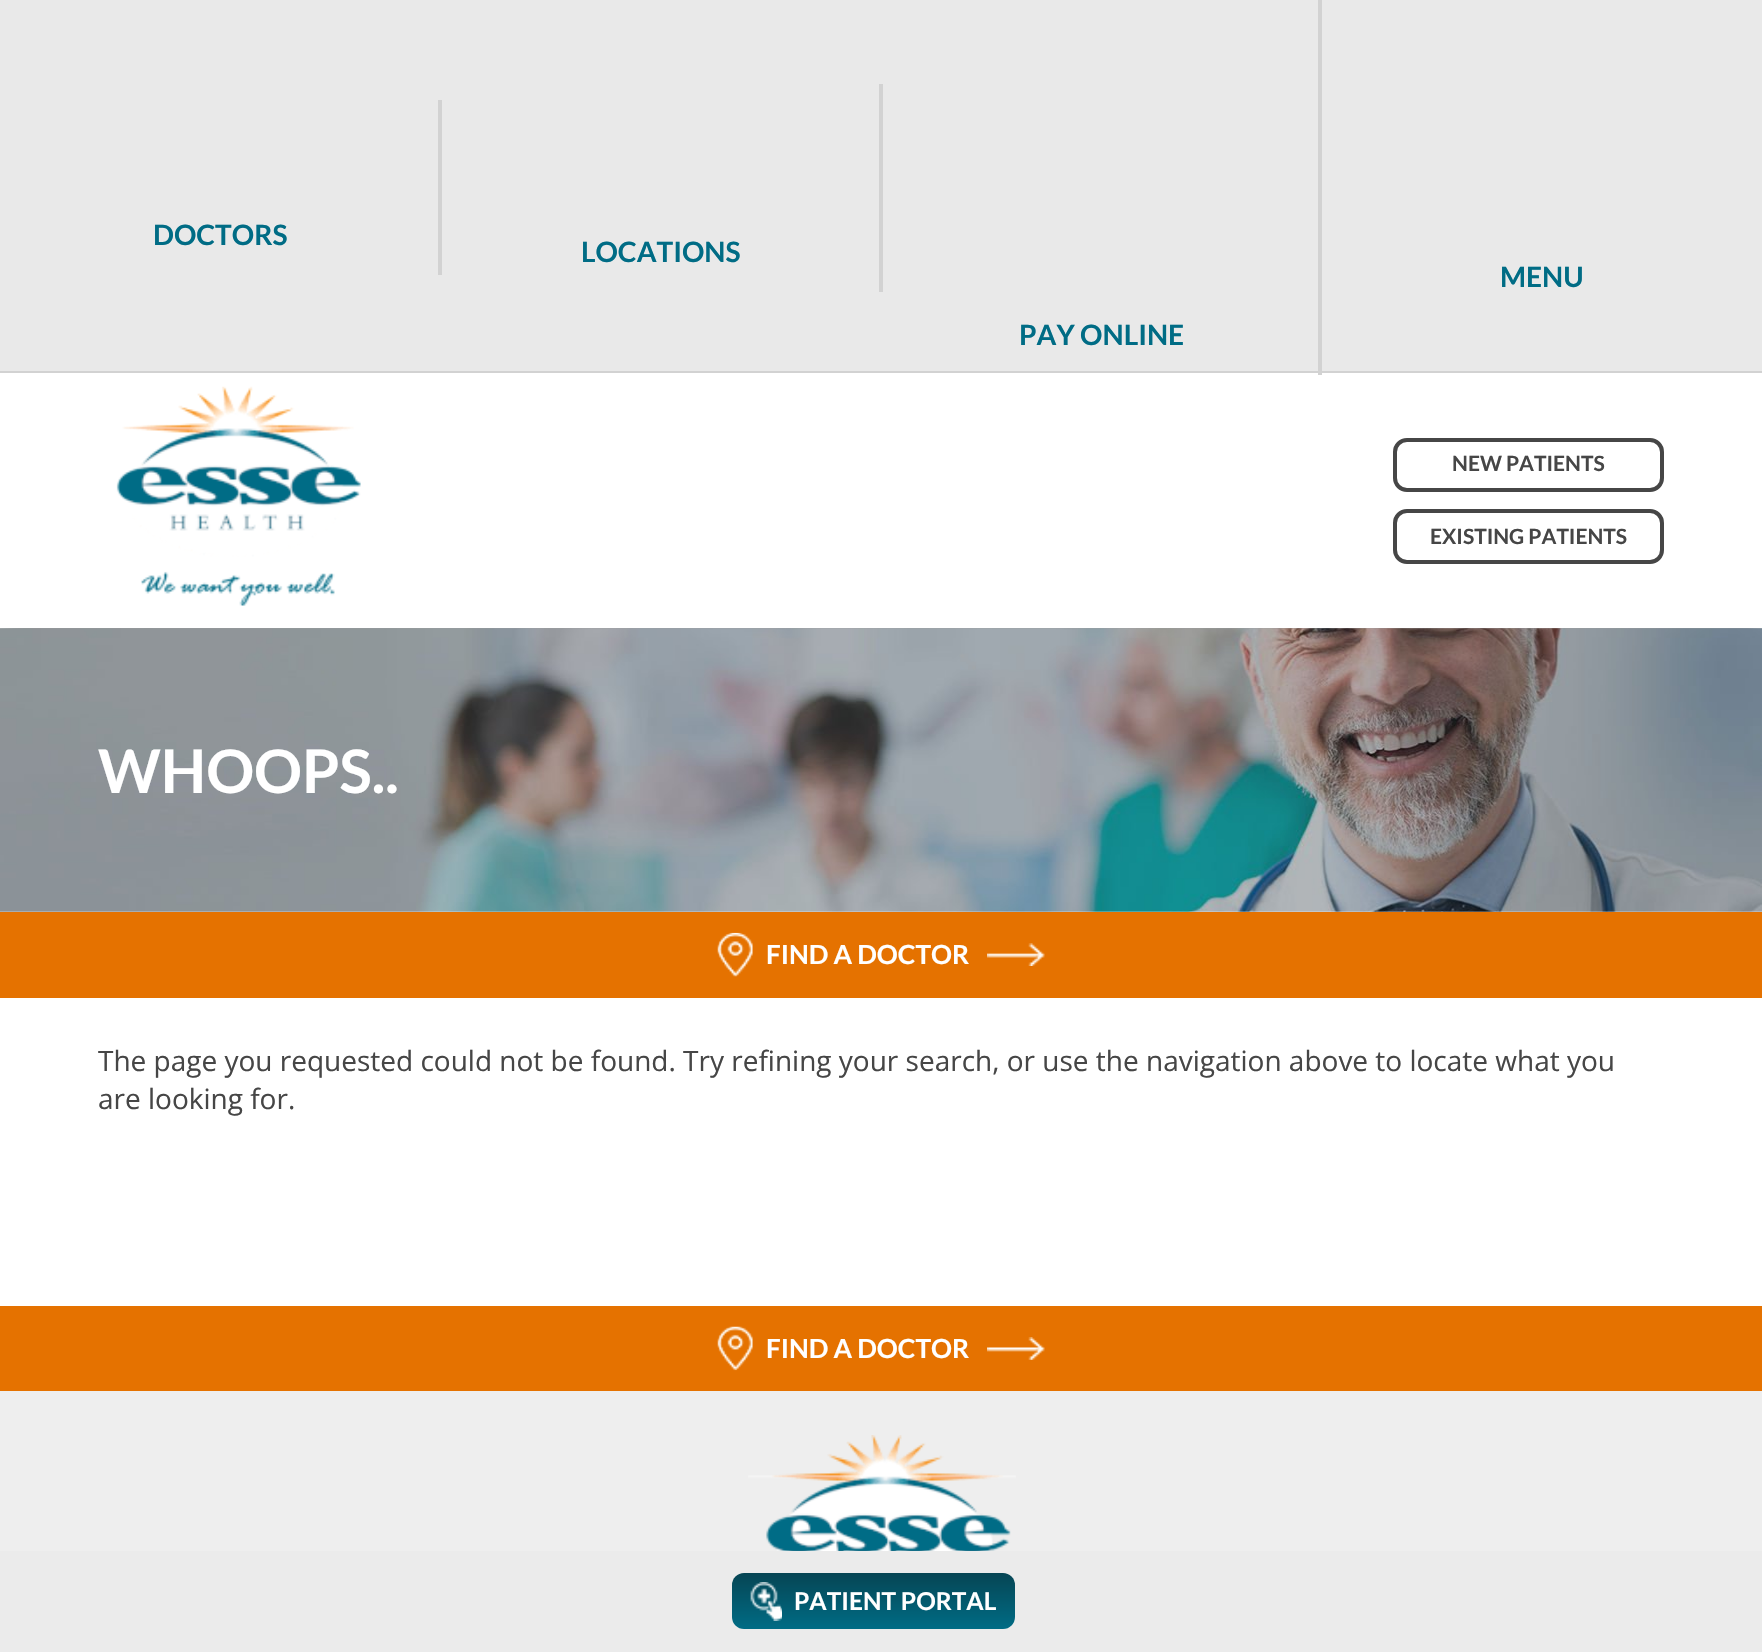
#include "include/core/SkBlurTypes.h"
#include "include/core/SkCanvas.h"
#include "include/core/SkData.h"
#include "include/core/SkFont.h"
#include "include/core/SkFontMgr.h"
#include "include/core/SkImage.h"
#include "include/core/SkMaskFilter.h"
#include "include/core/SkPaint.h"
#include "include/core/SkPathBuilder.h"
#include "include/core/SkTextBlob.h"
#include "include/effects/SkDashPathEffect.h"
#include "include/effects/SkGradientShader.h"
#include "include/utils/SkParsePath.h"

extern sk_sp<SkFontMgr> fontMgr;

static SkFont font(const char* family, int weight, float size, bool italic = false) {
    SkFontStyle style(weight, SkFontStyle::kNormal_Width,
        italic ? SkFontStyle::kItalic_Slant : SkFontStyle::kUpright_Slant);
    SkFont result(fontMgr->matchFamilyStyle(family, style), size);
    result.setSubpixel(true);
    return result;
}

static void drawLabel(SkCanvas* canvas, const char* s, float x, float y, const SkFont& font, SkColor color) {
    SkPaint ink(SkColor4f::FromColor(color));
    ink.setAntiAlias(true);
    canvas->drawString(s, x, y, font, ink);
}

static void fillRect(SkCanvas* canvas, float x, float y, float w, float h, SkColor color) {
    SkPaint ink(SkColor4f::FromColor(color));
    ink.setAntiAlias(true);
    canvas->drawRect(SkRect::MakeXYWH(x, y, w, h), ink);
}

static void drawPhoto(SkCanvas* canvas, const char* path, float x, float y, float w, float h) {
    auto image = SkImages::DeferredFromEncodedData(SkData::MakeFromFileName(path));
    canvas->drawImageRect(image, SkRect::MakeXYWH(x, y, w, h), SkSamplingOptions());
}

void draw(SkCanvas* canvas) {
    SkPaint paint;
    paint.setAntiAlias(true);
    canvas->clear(0xFFFFFFFF);
    canvas->save();
    canvas->clipRect(SkRect::MakeXYWH(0, 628, 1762, 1));
    paint.setColor(0x9E000000);
    paint.setMaskFilter(SkMaskFilter::MakeBlur(kNormal_SkBlurStyle, 10.5f));
    canvas->drawRect(SkRect::MakeXYWH(2, 4, 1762, 628), paint);
    paint.setMaskFilter(nullptr);
    canvas->restore();
    fillRect(canvas, 0, 0, 1762, 371, 0xFFE9E9E9);
    fillRect(canvas, 0, 371, 1762, 2, 0xFFD2D2D2);
    SkFont font1 = font("Lato", 700, 28);
    drawLabel(canvas, "DOCTORS", 153, 245, font1, 0xFF006C85);
    fillRect(canvas, 438, 100, 4, 175, 0xFFD2D2D2);
    drawLabel(canvas, "LOCATIONS", 581, 262, font1, 0xFF006C85);
    fillRect(canvas, 879, 84, 4, 208, 0xFFD2D2D2);
    drawLabel(canvas, "MENU", 1500, 287, font1, 0xFF006C85);
    drawLabel(canvas, "PAY ONLINE", 1019, 345, font1, 0xFF006C85);
    fillRect(canvas, 1318, 0, 4, 375, 0xFFD2D2D2);
    drawPhoto(canvas, "assets/img1.png", 116, 386, 245, 220);
    paint.setStroke(true);
    paint.setStrokeWidth(4);
    paint.setColor(0xFF464646);
    canvas->drawRoundRect(SkRect::MakeXYWH(1395, 440, 267, 50), 12, 12, paint);
    SkFont font2 = font("Lato", 700, 21);
    drawLabel(canvas, "NEW PATIENTS", 1452, 471, font2, 0xFF464646);
    canvas->drawRoundRect(SkRect::MakeXYWH(1395, 511, 267, 51), 12, 12, paint);
    drawLabel(canvas, "EXISTING PATIENTS", 1430, 544, font2, 0xFF464646);
    fillRect(canvas, 0, 1551, 1762, 101, 0xFFEBEBEB);
    paint.setStroke(false);
    {
        const SkColor colors[] = {0xFF064554, 0xFF006C85};
        const float stops[] = {0, 1};
        const SkPoint ends[] = {{873, 1573}, {873, 1629}};
        paint.setShader(SkGradientShader::MakeLinear(ends, colors, stops, 2, SkTileMode::kClamp));
        paint.setAlpha(255);
    }
    canvas->drawRoundRect(SkRect::MakeXYWH(732, 1573, 283, 56), 12, 12, paint);
    drawPhoto(canvas, "assets/img2.png", 750, 1582, 32, 39);
    SkFont font3 = font("Lato", 700, 24.5f);
    drawLabel(canvas, "PATIENT PORTAL", 794, 1610, font3, 0xFFFFFFFF);
    drawPhoto(canvas, "assets/img3.png", 0, 628, 1762, 284);
    SkFont font4 = font("Lato", 700, 60);
    drawLabel(canvas, "WHOOPS..", 98, 793, font4, 0xFFFFFFFF);
    fillRect(canvas, 0, 912, 1762, 86, 0xFFE57200);
    drawPhoto(canvas, "assets/img4.png", 717, 932, 36, 45);
    SkFont font5 = font("Lato", 700, 26.25f);
    drawLabel(canvas, "FIND A DOCTOR", 766, 964, font5, 0xFFFFFFFF);
    drawPhoto(canvas, "assets/img5.png", 987, 943, 58, 23);
    SkFont font6 = font("Open Sans", 400, 28);
    drawLabel(canvas, "The page you requested could not be found. Try refining your search, or use the navigation above to locate what you", 98, 1071, font6, 0xFF464646);
    drawLabel(canvas, "are looking for.", 98, 1109, font6, 0xFF464646);
    fillRect(canvas, 0, 1306, 1762, 85, 0xFFE57200);
    drawPhoto(canvas, "assets/img6.png", 717, 1326, 36, 45);
    drawLabel(canvas, "FIND A DOCTOR", 766, 1358, font5, 0xFFFFFFFF);
    drawPhoto(canvas, "assets/img7.png", 987, 1337, 58, 23);
    fillRect(canvas, 0, 1391, 1762, 160, 0xFFEEEEEE);
    drawPhoto(canvas, "assets/img8.png", 748, 1435, 268, 116);
}
